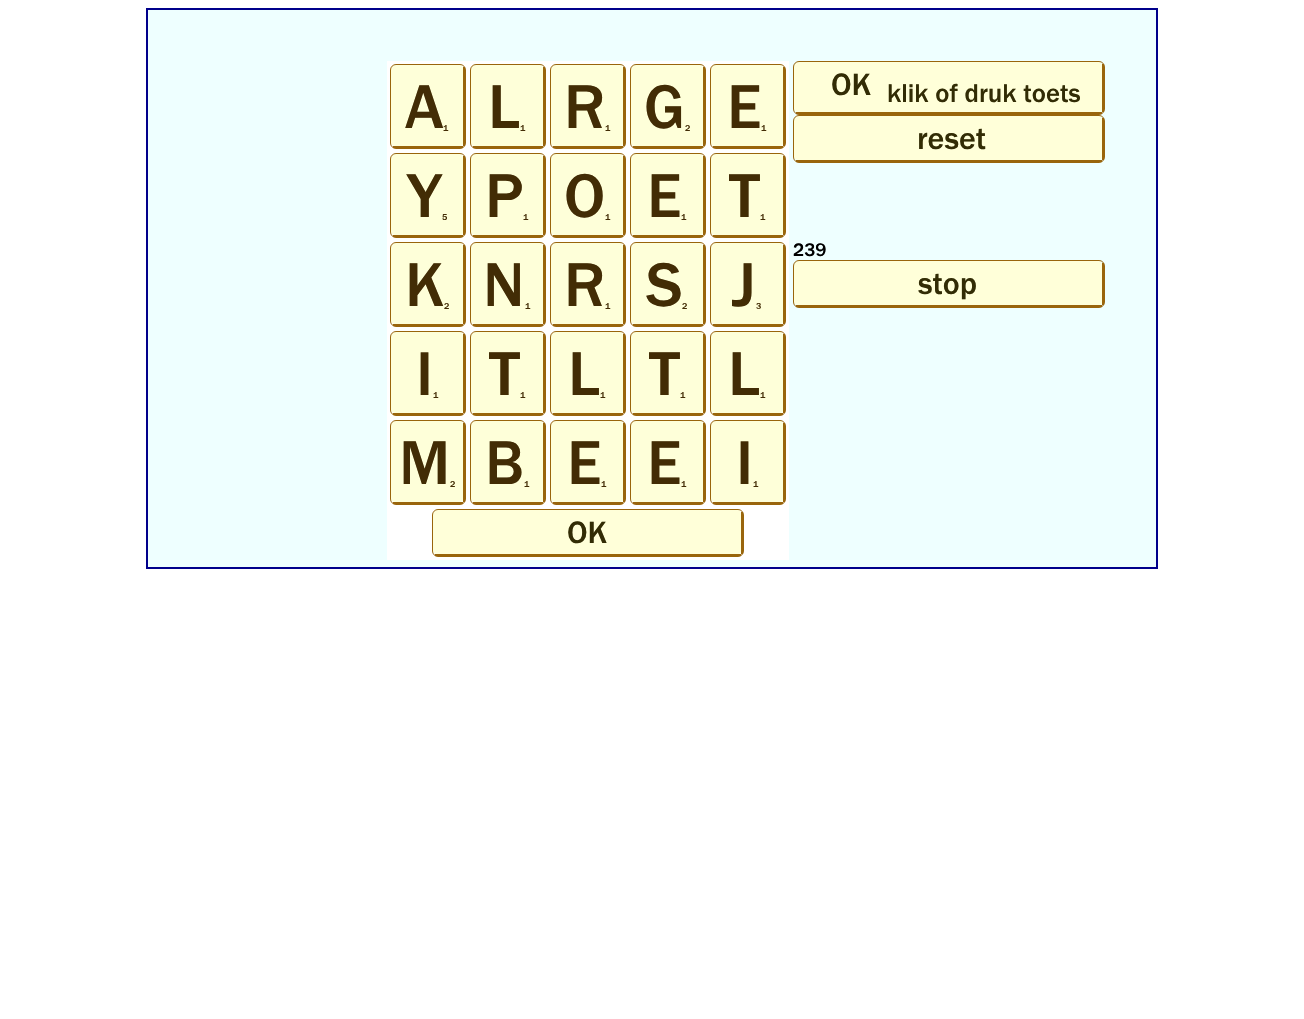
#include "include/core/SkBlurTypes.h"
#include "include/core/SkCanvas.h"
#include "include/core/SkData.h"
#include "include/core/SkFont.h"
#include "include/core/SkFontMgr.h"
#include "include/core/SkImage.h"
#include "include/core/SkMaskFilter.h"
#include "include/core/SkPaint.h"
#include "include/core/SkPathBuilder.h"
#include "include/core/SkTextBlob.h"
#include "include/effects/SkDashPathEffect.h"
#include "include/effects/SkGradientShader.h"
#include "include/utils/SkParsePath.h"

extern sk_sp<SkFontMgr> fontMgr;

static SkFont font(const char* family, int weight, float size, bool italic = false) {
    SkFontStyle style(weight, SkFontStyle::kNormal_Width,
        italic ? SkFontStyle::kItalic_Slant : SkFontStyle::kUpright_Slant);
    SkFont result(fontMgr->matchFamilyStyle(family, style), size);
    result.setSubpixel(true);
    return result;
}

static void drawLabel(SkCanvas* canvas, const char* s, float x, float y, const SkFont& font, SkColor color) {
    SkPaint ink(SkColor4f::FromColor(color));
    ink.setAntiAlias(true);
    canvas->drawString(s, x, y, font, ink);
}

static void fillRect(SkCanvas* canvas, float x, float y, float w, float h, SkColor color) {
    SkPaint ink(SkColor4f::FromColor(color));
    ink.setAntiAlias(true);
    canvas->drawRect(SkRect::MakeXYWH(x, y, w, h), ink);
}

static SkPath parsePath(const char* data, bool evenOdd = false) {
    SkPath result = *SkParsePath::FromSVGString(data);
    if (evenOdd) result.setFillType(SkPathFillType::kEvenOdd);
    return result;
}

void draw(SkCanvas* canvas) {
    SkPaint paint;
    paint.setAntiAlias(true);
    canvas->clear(0xFFFFFFFF);
    paint.setColor(0xFFEEFFFF);
    canvas->drawRect(SkRect::MakeXYWH(147, 9, 1010, 559), paint);
    paint.setStroke(true);
    paint.setStrokeWidth(2);
    paint.setColor(0xFF00008B);
    canvas->drawRect(SkRect::MakeXYWH(147, 9, 1010, 559), paint);
    fillRect(canvas, 387, 61, 402, 499, 0xFFFFFFFF);
    paint.setStroke(false);
    paint.setColor(0xFFFEFFD9);
    canvas->drawPath(parsePath("M396 65H460C462 65 463 67 463 70V143C463 145 462 146 460 146H396C393 146 391 145 391 143V70C391 67 393 65 396 65Z"), paint);
    paint.setStroke(true);
    paint.setStrokeWidth(1);
    paint.setColor(0xFF99650C);
    canvas->drawRoundRect(SkRect::MakeXYWH(390.5f, 64.5f, 75, 84), 5.5f, 5.5f, paint);
    fillRect(canvas, 463, 67, 2, 79, 0xFF99650C);
    fillRect(canvas, 393, 146, 70, 2, 0xFF99650C);
    SkFont font1 = font("Franklin Gothic", 500, 64);
    drawLabel(canvas, "A", 405, 128, font1, 0xFF422C05);
    SkFont font2 = font("Franklin Gothic", 500, 9);
    drawLabel(canvas, "1", 443, 131, font2, 0xFF422C05);
    paint.setStroke(false);
    paint.setColor(0xFFFEFFD9);
    canvas->drawPath(parsePath("M476 65H540C542 65 543 67 543 70V143C543 145 542 146 540 146H476C473 146 471 145 471 143V70C471 67 473 65 476 65Z"), paint);
    paint.setStroke(true);
    paint.setColor(0xFF99650C);
    canvas->drawRoundRect(SkRect::MakeXYWH(470.5f, 64.5f, 75, 84), 5.5f, 5.5f, paint);
    fillRect(canvas, 543, 67, 2, 79, 0xFF99650C);
    fillRect(canvas, 473, 146, 70, 2, 0xFF99650C);
    drawLabel(canvas, "L", 488, 128, font1, 0xFF422C05);
    drawLabel(canvas, "1", 520, 131, font2, 0xFF422C05);
    paint.setStroke(false);
    paint.setColor(0xFFFEFFD9);
    canvas->drawPath(parsePath("M556 65H620C622 65 623 67 623 70V143C623 145 622 146 620 146H556C553 146 551 145 551 143V70C551 67 553 65 556 65Z"), paint);
    paint.setStroke(true);
    paint.setColor(0xFF99650C);
    canvas->drawRoundRect(SkRect::MakeXYWH(550.5f, 64.5f, 75, 84), 5.5f, 5.5f, paint);
    fillRect(canvas, 623, 67, 2, 79, 0xFF99650C);
    fillRect(canvas, 553, 146, 70, 2, 0xFF99650C);
    drawLabel(canvas, "R", 564, 128, font1, 0xFF422C05);
    drawLabel(canvas, "1", 605, 131, font2, 0xFF422C05);
    paint.setStroke(false);
    paint.setColor(0xFFFEFFD9);
    canvas->drawPath(parsePath("M636 65H700C702 65 703 67 703 70V143C703 145 702 146 700 146H636C633 146 631 145 631 143V70C631 67 633 65 636 65Z"), paint);
    paint.setStroke(true);
    paint.setColor(0xFF99650C);
    canvas->drawRoundRect(SkRect::MakeXYWH(630.5f, 64.5f, 75, 84), 5.5f, 5.5f, paint);
    fillRect(canvas, 703, 67, 2, 79, 0xFF99650C);
    fillRect(canvas, 633, 146, 70, 2, 0xFF99650C);
    drawLabel(canvas, "G", 644, 128, font1, 0xFF422C05);
    drawLabel(canvas, "2", 685, 131, font2, 0xFF422C05);
    paint.setStroke(false);
    paint.setColor(0xFFFEFFD9);
    canvas->drawPath(parsePath("M716 65H780C782 65 783 67 783 70V143C783 145 782 146 780 146H716C713 146 711 145 711 143V70C711 67 713 65 716 65Z"), paint);
    paint.setStroke(true);
    paint.setColor(0xFF99650C);
    canvas->drawRoundRect(SkRect::MakeXYWH(710.5f, 64.5f, 75, 84), 5.5f, 5.5f, paint);
    fillRect(canvas, 783, 67, 2, 79, 0xFF99650C);
    fillRect(canvas, 713, 146, 70, 2, 0xFF99650C);
    drawLabel(canvas, "E", 727, 128, font1, 0xFF422C05);
    drawLabel(canvas, "1", 761, 131, font2, 0xFF422C05);
    paint.setStroke(false);
    paint.setColor(0xFFFEFFD9);
    canvas->drawPath(parsePath("M396 154H460C462 154 463 156 463 159V232C463 234 462 235 460 235H396C393 235 391 234 391 232V159C391 156 393 154 396 154Z"), paint);
    paint.setStroke(true);
    paint.setColor(0xFF99650C);
    canvas->drawRoundRect(SkRect::MakeXYWH(390.5f, 153.5f, 75, 84), 5.5f, 5.5f, paint);
    fillRect(canvas, 463, 156, 2, 79, 0xFF99650C);
    fillRect(canvas, 393, 235, 70, 2, 0xFF99650C);
    drawLabel(canvas, "Y", 407, 217, font1, 0xFF422C05);
    drawLabel(canvas, "5", 442, 220, font2, 0xFF422C05);
    paint.setStroke(false);
    paint.setColor(0xFFFEFFD9);
    canvas->drawPath(parsePath("M476 154H540C542 154 543 156 543 159V232C543 234 542 235 540 235H476C473 235 471 234 471 232V159C471 156 473 154 476 154Z"), paint);
    paint.setStroke(true);
    paint.setColor(0xFF99650C);
    canvas->drawRoundRect(SkRect::MakeXYWH(470.5f, 153.5f, 75, 84), 5.5f, 5.5f, paint);
    fillRect(canvas, 543, 156, 2, 79, 0xFF99650C);
    fillRect(canvas, 473, 235, 70, 2, 0xFF99650C);
    drawLabel(canvas, "P", 485, 217, font1, 0xFF422C05);
    drawLabel(canvas, "1", 523, 220, font2, 0xFF422C05);
    paint.setStroke(false);
    paint.setColor(0xFFFEFFD9);
    canvas->drawPath(parsePath("M556 154H620C622 154 623 156 623 159V232C623 234 622 235 620 235H556C553 235 551 234 551 232V159C551 156 553 154 556 154Z"), paint);
    paint.setStroke(true);
    paint.setColor(0xFF99650C);
    canvas->drawRoundRect(SkRect::MakeXYWH(550.5f, 153.5f, 75, 84), 5.5f, 5.5f, paint);
    fillRect(canvas, 623, 156, 2, 79, 0xFF99650C);
    fillRect(canvas, 553, 235, 70, 2, 0xFF99650C);
    drawLabel(canvas, "O", 564, 217, font1, 0xFF422C05);
    drawLabel(canvas, "1", 605, 220, font2, 0xFF422C05);
    paint.setStroke(false);
    paint.setColor(0xFFFEFFD9);
    canvas->drawPath(parsePath("M636 154H700C702 154 703 156 703 159V232C703 234 702 235 700 235H636C633 235 631 234 631 232V159C631 156 633 154 636 154Z"), paint);
    paint.setStroke(true);
    paint.setColor(0xFF99650C);
    canvas->drawRoundRect(SkRect::MakeXYWH(630.5f, 153.5f, 75, 84), 5.5f, 5.5f, paint);
    fillRect(canvas, 703, 156, 2, 79, 0xFF99650C);
    fillRect(canvas, 633, 235, 70, 2, 0xFF99650C);
    drawLabel(canvas, "E", 647, 217, font1, 0xFF422C05);
    drawLabel(canvas, "1", 681, 220, font2, 0xFF422C05);
    paint.setStroke(false);
    paint.setColor(0xFFFEFFD9);
    canvas->drawPath(parsePath("M716 154H780C782 154 783 156 783 159V232C783 234 782 235 780 235H716C713 235 711 234 711 232V159C711 156 713 154 716 154Z"), paint);
    paint.setStroke(true);
    paint.setColor(0xFF99650C);
    canvas->drawRoundRect(SkRect::MakeXYWH(710.5f, 153.5f, 75, 84), 5.5f, 5.5f, paint);
    fillRect(canvas, 783, 156, 2, 79, 0xFF99650C);
    fillRect(canvas, 713, 235, 70, 2, 0xFF99650C);
    drawLabel(canvas, "T", 729, 217, font1, 0xFF422C05);
    drawLabel(canvas, "1", 760, 220, font2, 0xFF422C05);
    paint.setStroke(false);
    paint.setColor(0xFFFEFFD9);
    canvas->drawPath(parsePath("M396 243H460C462 243 463 245 463 248V321C463 323 462 324 460 324H396C393 324 391 323 391 321V248C391 245 393 243 396 243Z"), paint);
    paint.setStroke(true);
    paint.setColor(0xFF99650C);
    canvas->drawRoundRect(SkRect::MakeXYWH(390.5f, 242.5f, 75, 84), 5.5f, 5.5f, paint);
    fillRect(canvas, 463, 245, 2, 79, 0xFF99650C);
    fillRect(canvas, 393, 324, 70, 2, 0xFF99650C);
    drawLabel(canvas, "K", 405, 306, font1, 0xFF422C05);
    drawLabel(canvas, "2", 444, 309, font2, 0xFF422C05);
    paint.setStroke(false);
    paint.setColor(0xFFFEFFD9);
    canvas->drawPath(parsePath("M476 243H540C542 243 543 245 543 248V321C543 323 542 324 540 324H476C473 324 471 323 471 321V248C471 245 473 243 476 243Z"), paint);
    paint.setStroke(true);
    paint.setColor(0xFF99650C);
    canvas->drawRoundRect(SkRect::MakeXYWH(470.5f, 242.5f, 75, 84), 5.5f, 5.5f, paint);
    fillRect(canvas, 543, 245, 2, 79, 0xFF99650C);
    fillRect(canvas, 473, 324, 70, 2, 0xFF99650C);
    drawLabel(canvas, "N", 483, 306, font1, 0xFF422C05);
    drawLabel(canvas, "1", 525, 309, font2, 0xFF422C05);
    paint.setStroke(false);
    paint.setColor(0xFFFEFFD9);
    canvas->drawPath(parsePath("M556 243H620C622 243 623 245 623 248V321C623 323 622 324 620 324H556C553 324 551 323 551 321V248C551 245 553 243 556 243Z"), paint);
    paint.setStroke(true);
    paint.setColor(0xFF99650C);
    canvas->drawRoundRect(SkRect::MakeXYWH(550.5f, 242.5f, 75, 84), 5.5f, 5.5f, paint);
    fillRect(canvas, 623, 245, 2, 79, 0xFF99650C);
    fillRect(canvas, 553, 324, 70, 2, 0xFF99650C);
    drawLabel(canvas, "R", 564, 306, font1, 0xFF422C05);
    drawLabel(canvas, "1", 605, 309, font2, 0xFF422C05);
    paint.setStroke(false);
    paint.setColor(0xFFFEFFD9);
    canvas->drawPath(parsePath("M636 243H700C702 243 703 245 703 248V321C703 323 702 324 700 324H636C633 324 631 323 631 321V248C631 245 633 243 636 243Z"), paint);
    paint.setStroke(true);
    paint.setColor(0xFF99650C);
    canvas->drawRoundRect(SkRect::MakeXYWH(630.5f, 242.5f, 75, 84), 5.5f, 5.5f, paint);
    fillRect(canvas, 703, 245, 2, 79, 0xFF99650C);
    fillRect(canvas, 633, 324, 70, 2, 0xFF99650C);
    drawLabel(canvas, "S", 646, 306, font1, 0xFF422C05);
    drawLabel(canvas, "2", 682, 309, font2, 0xFF422C05);
    paint.setStroke(false);
    paint.setColor(0xFFFEFFD9);
    canvas->drawPath(parsePath("M716 243H780C782 243 783 245 783 248V321C783 323 782 324 780 324H716C713 324 711 323 711 321V248C711 245 713 243 716 243Z"), paint);
    paint.setStroke(true);
    paint.setColor(0xFF99650C);
    canvas->drawRoundRect(SkRect::MakeXYWH(710.5f, 242.5f, 75, 84), 5.5f, 5.5f, paint);
    fillRect(canvas, 783, 245, 2, 79, 0xFF99650C);
    fillRect(canvas, 713, 324, 70, 2, 0xFF99650C);
    drawLabel(canvas, "J", 732, 306, font1, 0xFF422C05);
    drawLabel(canvas, "3", 756, 309, font2, 0xFF422C05);
    paint.setStroke(false);
    paint.setColor(0xFFFEFFD9);
    canvas->drawPath(parsePath("M396 332H460C462 332 463 334 463 337V410C463 412 462 413 460 413H396C393 413 391 412 391 410V337C391 334 393 332 396 332Z"), paint);
    paint.setStroke(true);
    paint.setColor(0xFF99650C);
    canvas->drawRoundRect(SkRect::MakeXYWH(390.5f, 331.5f, 75, 84), 5.5f, 5.5f, paint);
    fillRect(canvas, 463, 334, 2, 79, 0xFF99650C);
    fillRect(canvas, 393, 413, 70, 2, 0xFF99650C);
    drawLabel(canvas, "I", 416, 395, font1, 0xFF422C05);
    drawLabel(canvas, "1", 433, 398, font2, 0xFF422C05);
    paint.setStroke(false);
    paint.setColor(0xFFFEFFD9);
    canvas->drawPath(parsePath("M476 332H540C542 332 543 334 543 337V410C543 412 542 413 540 413H476C473 413 471 412 471 410V337C471 334 473 332 476 332Z"), paint);
    paint.setStroke(true);
    paint.setColor(0xFF99650C);
    canvas->drawRoundRect(SkRect::MakeXYWH(470.5f, 331.5f, 75, 84), 5.5f, 5.5f, paint);
    fillRect(canvas, 543, 334, 2, 79, 0xFF99650C);
    fillRect(canvas, 473, 413, 70, 2, 0xFF99650C);
    drawLabel(canvas, "T", 489, 395, font1, 0xFF422C05);
    drawLabel(canvas, "1", 520, 398, font2, 0xFF422C05);
    paint.setStroke(false);
    paint.setColor(0xFFFEFFD9);
    canvas->drawPath(parsePath("M556 332H620C622 332 623 334 623 337V410C623 412 622 413 620 413H556C553 413 551 412 551 410V337C551 334 553 332 556 332Z"), paint);
    paint.setStroke(true);
    paint.setColor(0xFF99650C);
    canvas->drawRoundRect(SkRect::MakeXYWH(550.5f, 331.5f, 75, 84), 5.5f, 5.5f, paint);
    fillRect(canvas, 623, 334, 2, 79, 0xFF99650C);
    fillRect(canvas, 553, 413, 70, 2, 0xFF99650C);
    drawLabel(canvas, "L", 568, 395, font1, 0xFF422C05);
    drawLabel(canvas, "1", 600, 398, font2, 0xFF422C05);
    paint.setStroke(false);
    paint.setColor(0xFFFEFFD9);
    canvas->drawPath(parsePath("M636 332H700C702 332 703 334 703 337V410C703 412 702 413 700 413H636C633 413 631 412 631 410V337C631 334 633 332 636 332Z"), paint);
    paint.setStroke(true);
    paint.setColor(0xFF99650C);
    canvas->drawRoundRect(SkRect::MakeXYWH(630.5f, 331.5f, 75, 84), 5.5f, 5.5f, paint);
    fillRect(canvas, 703, 334, 2, 79, 0xFF99650C);
    fillRect(canvas, 633, 413, 70, 2, 0xFF99650C);
    drawLabel(canvas, "T", 649, 395, font1, 0xFF422C05);
    drawLabel(canvas, "1", 680, 398, font2, 0xFF422C05);
    paint.setStroke(false);
    paint.setColor(0xFFFEFFD9);
    canvas->drawPath(parsePath("M716 332H780C782 332 783 334 783 337V410C783 412 782 413 780 413H716C713 413 711 412 711 410V337C711 334 713 332 716 332Z"), paint);
    paint.setStroke(true);
    paint.setColor(0xFF99650C);
    canvas->drawRoundRect(SkRect::MakeXYWH(710.5f, 331.5f, 75, 84), 5.5f, 5.5f, paint);
    fillRect(canvas, 783, 334, 2, 79, 0xFF99650C);
    fillRect(canvas, 713, 413, 70, 2, 0xFF99650C);
    drawLabel(canvas, "L", 728, 395, font1, 0xFF422C05);
    drawLabel(canvas, "1", 760, 398, font2, 0xFF422C05);
    paint.setStroke(false);
    paint.setColor(0xFFFEFFD9);
    canvas->drawPath(parsePath("M396 421H460C462 421 463 423 463 426V499C463 501 462 502 460 502H396C393 502 391 501 391 499V426C391 423 393 421 396 421Z"), paint);
    paint.setStroke(true);
    paint.setColor(0xFF99650C);
    canvas->drawRoundRect(SkRect::MakeXYWH(390.5f, 420.5f, 75, 84), 5.5f, 5.5f, paint);
    fillRect(canvas, 463, 423, 2, 79, 0xFF99650C);
    fillRect(canvas, 393, 502, 70, 2, 0xFF99650C);
    drawLabel(canvas, "M", 399, 484, font1, 0xFF422C05);
    drawLabel(canvas, "2", 450, 487, font2, 0xFF422C05);
    paint.setStroke(false);
    paint.setColor(0xFFFEFFD9);
    canvas->drawPath(parsePath("M476 421H540C542 421 543 423 543 426V499C543 501 542 502 540 502H476C473 502 471 501 471 499V426C471 423 473 421 476 421Z"), paint);
    paint.setStroke(true);
    paint.setColor(0xFF99650C);
    canvas->drawRoundRect(SkRect::MakeXYWH(470.5f, 420.5f, 75, 84), 5.5f, 5.5f, paint);
    fillRect(canvas, 543, 423, 2, 79, 0xFF99650C);
    fillRect(canvas, 473, 502, 70, 2, 0xFF99650C);
    drawLabel(canvas, "B", 485, 484, font1, 0xFF422C05);
    drawLabel(canvas, "1", 524, 487, font2, 0xFF422C05);
    paint.setStroke(false);
    paint.setColor(0xFFFEFFD9);
    canvas->drawPath(parsePath("M556 421H620C622 421 623 423 623 426V499C623 501 622 502 620 502H556C553 502 551 501 551 499V426C551 423 553 421 556 421Z"), paint);
    paint.setStroke(true);
    paint.setColor(0xFF99650C);
    canvas->drawRoundRect(SkRect::MakeXYWH(550.5f, 420.5f, 75, 84), 5.5f, 5.5f, paint);
    fillRect(canvas, 623, 423, 2, 79, 0xFF99650C);
    fillRect(canvas, 553, 502, 70, 2, 0xFF99650C);
    drawLabel(canvas, "E", 567, 484, font1, 0xFF422C05);
    drawLabel(canvas, "1", 601, 487, font2, 0xFF422C05);
    paint.setStroke(false);
    paint.setColor(0xFFFEFFD9);
    canvas->drawPath(parsePath("M636 421H700C702 421 703 423 703 426V499C703 501 702 502 700 502H636C633 502 631 501 631 499V426C631 423 633 421 636 421Z"), paint);
    paint.setStroke(true);
    paint.setColor(0xFF99650C);
    canvas->drawRoundRect(SkRect::MakeXYWH(630.5f, 420.5f, 75, 84), 5.5f, 5.5f, paint);
    fillRect(canvas, 703, 423, 2, 79, 0xFF99650C);
    fillRect(canvas, 633, 502, 70, 2, 0xFF99650C);
    drawLabel(canvas, "E", 647, 484, font1, 0xFF422C05);
    drawLabel(canvas, "1", 681, 487, font2, 0xFF422C05);
    paint.setStroke(false);
    paint.setColor(0xFFFEFFD9);
    canvas->drawPath(parsePath("M716 421H780C782 421 783 423 783 426V499C783 501 782 502 780 502H716C713 502 711 501 711 499V426C711 423 713 421 716 421Z"), paint);
    paint.setStroke(true);
    paint.setColor(0xFF99650C);
    canvas->drawRoundRect(SkRect::MakeXYWH(710.5f, 420.5f, 75, 84), 5.5f, 5.5f, paint);
    fillRect(canvas, 783, 423, 2, 79, 0xFF99650C);
    fillRect(canvas, 713, 502, 70, 2, 0xFF99650C);
    drawLabel(canvas, "I", 736, 484, font1, 0xFF422C05);
    drawLabel(canvas, "1", 753, 487, font2, 0xFF422C05);
    paint.setStroke(false);
    paint.setColor(0xFFFFFFD9);
    canvas->drawPath(parsePath("M438 510H738C740 510 741 512 741 515V551C741 553 740 554 738 554H438C435 554 433 553 433 551V515C433 512 435 510 438 510Z"), paint);
    paint.setStroke(true);
    paint.setColor(0xFF99650C);
    canvas->drawRoundRect(SkRect::MakeXYWH(432.5f, 509.5f, 311, 47), 5.5f, 5.5f, paint);
    fillRect(canvas, 741, 512, 2, 42, 0xFF99650C);
    fillRect(canvas, 435, 554, 306, 2, 0xFF99650C);
    SkFont font3 = font("Franklin Gothic", 500, 32);
    drawLabel(canvas, "OK", 567, 543, font3, 0xFF322C05);
    paint.setStroke(false);
    paint.setColor(0xFFFFFFD9);
    canvas->drawPath(parsePath("M799 62H1099C1101 62 1102 64 1102 67V109C1102 111 1101 112 1099 112H799C796 112 794 111 794 109V67C794 64 796 62 799 62Z"), paint);
    paint.setStroke(true);
    paint.setColor(0xFF99650C);
    canvas->drawRoundRect(SkRect::MakeXYWH(793.5f, 61.5f, 311, 53), 5.5f, 5.5f, paint);
    fillRect(canvas, 1102, 64, 2, 48, 0xFF99650C);
    fillRect(canvas, 796, 112, 306, 2, 0xFF99650C);
    drawLabel(canvas, "OK", 831, 95, font3, 0xFF322C05);
    SkFont font4 = font("Franklin Gothic", 500, 26.75f);
    drawLabel(canvas, "klik of druk toets", 887, 102, font4, 0xFF322C05);
    paint.setStroke(false);
    paint.setColor(0xFFFFFFD9);
    canvas->drawPath(parsePath("M799 116H1099C1101 116 1102 118 1102 121V157C1102 159 1101 160 1099 160H799C796 160 794 159 794 157V121C794 118 796 116 799 116Z"), paint);
    paint.setStroke(true);
    paint.setColor(0xFF99650C);
    canvas->drawRoundRect(SkRect::MakeXYWH(793.5f, 115.5f, 311, 47), 5.5f, 5.5f, paint);
    fillRect(canvas, 1102, 118, 2, 42, 0xFF99650C);
    fillRect(canvas, 796, 160, 306, 2, 0xFF99650C);
    drawLabel(canvas, "reset", 917, 149, font3, 0xFF322C05);
    SkFont font5 = font("Franklin Gothic", 500, 19);
    drawLabel(canvas, "239", 793, 256, font5, 0xFF000000);
    paint.setStroke(false);
    paint.setColor(0xFFFFFFD9);
    canvas->drawPath(parsePath("M799 261H1099C1101 261 1102 263 1102 266V302C1102 304 1101 305 1099 305H799C796 305 794 304 794 302V266C794 263 796 261 799 261Z"), paint);
    paint.setStroke(true);
    paint.setColor(0xFF99650C);
    canvas->drawRoundRect(SkRect::MakeXYWH(793.5f, 260.5f, 311, 47), 5.5f, 5.5f, paint);
    fillRect(canvas, 1102, 263, 2, 42, 0xFF99650C);
    fillRect(canvas, 796, 305, 306, 2, 0xFF99650C);
    drawLabel(canvas, "stop", 918, 294, font3, 0xFF322C05);
}
